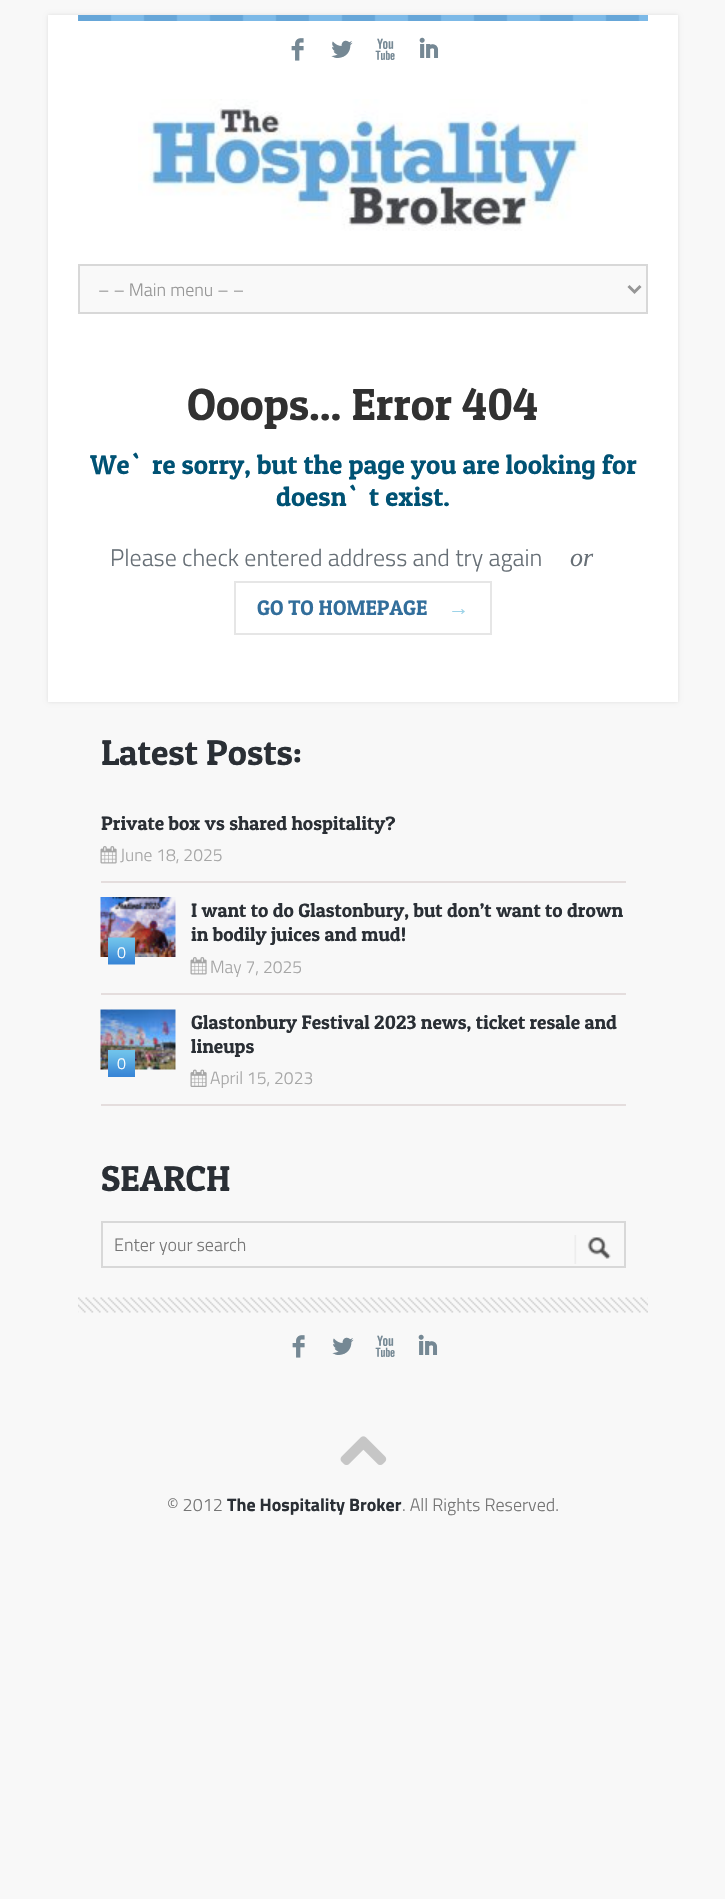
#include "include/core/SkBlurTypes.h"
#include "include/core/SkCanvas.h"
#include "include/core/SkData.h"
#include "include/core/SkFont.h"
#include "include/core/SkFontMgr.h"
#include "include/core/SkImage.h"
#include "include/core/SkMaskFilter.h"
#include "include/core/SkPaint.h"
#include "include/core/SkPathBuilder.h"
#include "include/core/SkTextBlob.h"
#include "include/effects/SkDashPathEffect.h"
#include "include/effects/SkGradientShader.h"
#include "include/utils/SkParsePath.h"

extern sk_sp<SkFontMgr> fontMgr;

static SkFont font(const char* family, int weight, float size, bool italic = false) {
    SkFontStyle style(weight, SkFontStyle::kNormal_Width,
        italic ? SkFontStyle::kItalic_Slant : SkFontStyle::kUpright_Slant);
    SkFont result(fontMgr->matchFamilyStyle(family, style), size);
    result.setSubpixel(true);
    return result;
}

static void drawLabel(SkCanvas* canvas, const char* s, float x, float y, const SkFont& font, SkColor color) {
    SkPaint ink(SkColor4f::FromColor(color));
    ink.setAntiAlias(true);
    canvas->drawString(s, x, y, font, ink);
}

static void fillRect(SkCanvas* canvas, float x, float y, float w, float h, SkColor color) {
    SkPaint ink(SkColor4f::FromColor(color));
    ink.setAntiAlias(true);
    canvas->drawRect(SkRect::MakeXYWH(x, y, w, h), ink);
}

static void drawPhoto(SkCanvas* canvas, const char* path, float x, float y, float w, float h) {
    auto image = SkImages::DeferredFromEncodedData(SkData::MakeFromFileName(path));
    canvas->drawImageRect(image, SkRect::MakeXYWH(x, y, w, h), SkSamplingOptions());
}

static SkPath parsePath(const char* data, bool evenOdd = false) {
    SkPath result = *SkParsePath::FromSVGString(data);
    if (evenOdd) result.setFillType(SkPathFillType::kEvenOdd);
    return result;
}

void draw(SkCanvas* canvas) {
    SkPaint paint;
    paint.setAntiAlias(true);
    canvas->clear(0xFFF8F8F8);
    paint.setColor(0x1A000000);
    paint.setMaskFilter(SkMaskFilter::MakeBlur(kNormal_SkBlurStyle, 2));
    canvas->drawRect(SkRect::MakeXYWH(48, 15, 630, 687), paint);
    paint.setMaskFilter(nullptr);
    fillRect(canvas, 48, 15, 630, 687, 0xFFFFFFFF);
    drawPhoto(canvas, "assets/img1.png", 78, 15, 570, 6);
    SkFont font1 = font("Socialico", 400, 36);
    drawLabel(canvas, "F", 290, 62, font1, 0xFF758894);
    drawLabel(canvas, "L", 327, 62, font1, 0xFF758894);
    drawLabel(canvas, "X", 374, 62, font1, 0xFF758894);
    drawLabel(canvas, "I", 418, 62, font1, 0xFF758894);
    drawPhoto(canvas, "assets/img2.png", 138, 99, 450, 132);
    paint.setColor(0xFFF9F9F9);
    canvas->drawRect(SkRect::MakeXYWH(79, 265, 568, 48), paint);
    paint.setStroke(true);
    paint.setStrokeWidth(2);
    paint.setColor(0xFFD8D8D8);
    canvas->drawRect(SkRect::MakeXYWH(79, 265, 568, 48), paint);
    paint.setStrokeWidth(3);
    paint.setColor(0xFF969696);
    canvas->drawPath(parsePath("M628.5 286L634.5 292L640.5 286"), paint);
    SkFont font2 = font("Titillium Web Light", 300, 18);
    drawLabel(canvas, "– – Main menu – –", 98, 296, font2, 0xFF969696);
    SkFont font3 = font("Patua One", 400, 45);
    drawLabel(canvas, "Ooops... Error 404", 187, 420, font3, 0xFF313131);
    SkFont font4 = font("Patua One", 400, 27);
    drawLabel(canvas, "We`re sorry, but the page you are looking for", 90, 474, font4, 0xFF005274);
    drawLabel(canvas, "doesn`t exist.", 276, 506, font4, 0xFF005274);
    SkFont font5 = font("Titillium Web Light", 300, 24);
    drawLabel(canvas, "Please check entered address and try again", 110, 566, font5, 0xFF676F76);
    SkFont font6 = font("Liberation Serif", 400, 26, true);
    drawLabel(canvas, "or", 570, 566, font6, 0xFF676F76);
    paint.setStrokeWidth(2);
    paint.setColor(0xFFE6E6E6);
    canvas->drawRect(SkRect::MakeXYWH(235, 582, 256, 52), paint);
    SkFont font7 = font("Patua One", 400, 21);
    drawLabel(canvas, "GO TO HOMEPAGE", 257, 615, font7, 0xFF326E9B);
    SkFont font8 = font("Liberation Sans", 400, 21);
    drawLabel(canvas, "→", 448, 615, font8, 0xFF9DD3E8);
    SkFont font9 = font("Patua One", 400, 36);
    drawLabel(canvas, "Latest Posts:", 101, 765, font9, 0xFF2A2F35);
    fillRect(canvas, 101, 881, 525, 2, 0xFFE4DDDD);
    SkFont font10 = font("Patua One", 400, 19.5f);
    drawLabel(canvas, "Private box vs shared hospitality?", 101, 830, font10, 0xFF2A2F35);
    drawPhoto(canvas, "assets/img3.png", 100, 846, 17, 18);
    SkFont font11 = font("Titillium Web Light", 300, 17.5f);
    drawLabel(canvas, "June 18, 2025", 120, 861, font11, 0xFFA6A6A6);
    fillRect(canvas, 101, 993, 525, 2, 0xFFE4DDDD);
    drawPhoto(canvas, "assets/img4.png", 100, 897, 76, 60);
    drawPhoto(canvas, "assets/img5.png", 108, 937, 27, 28);
    SkFont font12 = font("Titillium Web Light", 300, 16);
    drawLabel(canvas, "0", 117, 958, font12, 0xFFFFFFFF);
    drawLabel(canvas, "I want to do Glastonbury, but don’t want to drown", 191, 917, font10, 0xFF2A2F35);
    drawLabel(canvas, "in bodily juices and mud!", 191, 941, font10, 0xFF2A2F35);
    drawPhoto(canvas, "assets/img3.png", 190, 957, 17, 18);
    drawLabel(canvas, "May 7, 2025", 210, 973, font11, 0xFFA6A6A6);
    fillRect(canvas, 101, 1104, 525, 2, 0xFFE4DDDD);
    drawPhoto(canvas, "assets/img6.png", 100, 1009, 76, 61);
    drawPhoto(canvas, "assets/img7.png", 108, 1050, 27, 27);
    drawLabel(canvas, "0", 117, 1069, font12, 0xFFFFFFFF);
    drawLabel(canvas, "Glastonbury Festival 2023 news, ticket resale and", 191, 1029, font10, 0xFF2A2F35);
    drawLabel(canvas, "lineups", 191, 1053, font10, 0xFF2A2F35);
    drawPhoto(canvas, "assets/img8.png", 190, 1069, 17, 18);
    drawLabel(canvas, "April 15, 2023", 210, 1084, font11, 0xFFA6A6A6);
    drawLabel(canvas, "SEARCH", 101, 1191, font9, 0xFF2A2F35);
    paint.setColor(0xFFD8D8D8);
    canvas->drawRect(SkRect::MakeXYWH(102, 1222, 523, 45), paint);
    drawLabel(canvas, "Enter your search", 114, 1251, font2, 0xFF757575);
    drawPhoto(canvas, "assets/img9.png", 574, 1235, 37, 29);
    drawPhoto(canvas, "assets/img10.png", 78, 1297, 570, 16);
    drawLabel(canvas, "F", 291, 1359, font1, 0xFF758894);
    drawLabel(canvas, "L", 328, 1359, font1, 0xFF758894);
    drawLabel(canvas, "X", 374, 1359, font1, 0xFF758894);
    drawLabel(canvas, "I", 417, 1359, font1, 0xFF758894);
    drawPhoto(canvas, "assets/img11.png", 340, 1436, 47, 29);
    drawLabel(canvas, "© 2012", 167, 1511, font2, 0xFF757575);
    SkFont font13 = font("Titillium Web", 700, 18);
    drawLabel(canvas, "The Hospitality Broker", 227, 1511, font13, 0xFF2A2F35);
    drawLabel(canvas, ". All Rights Reserved.", 402, 1511, font2, 0xFF757575);
}
